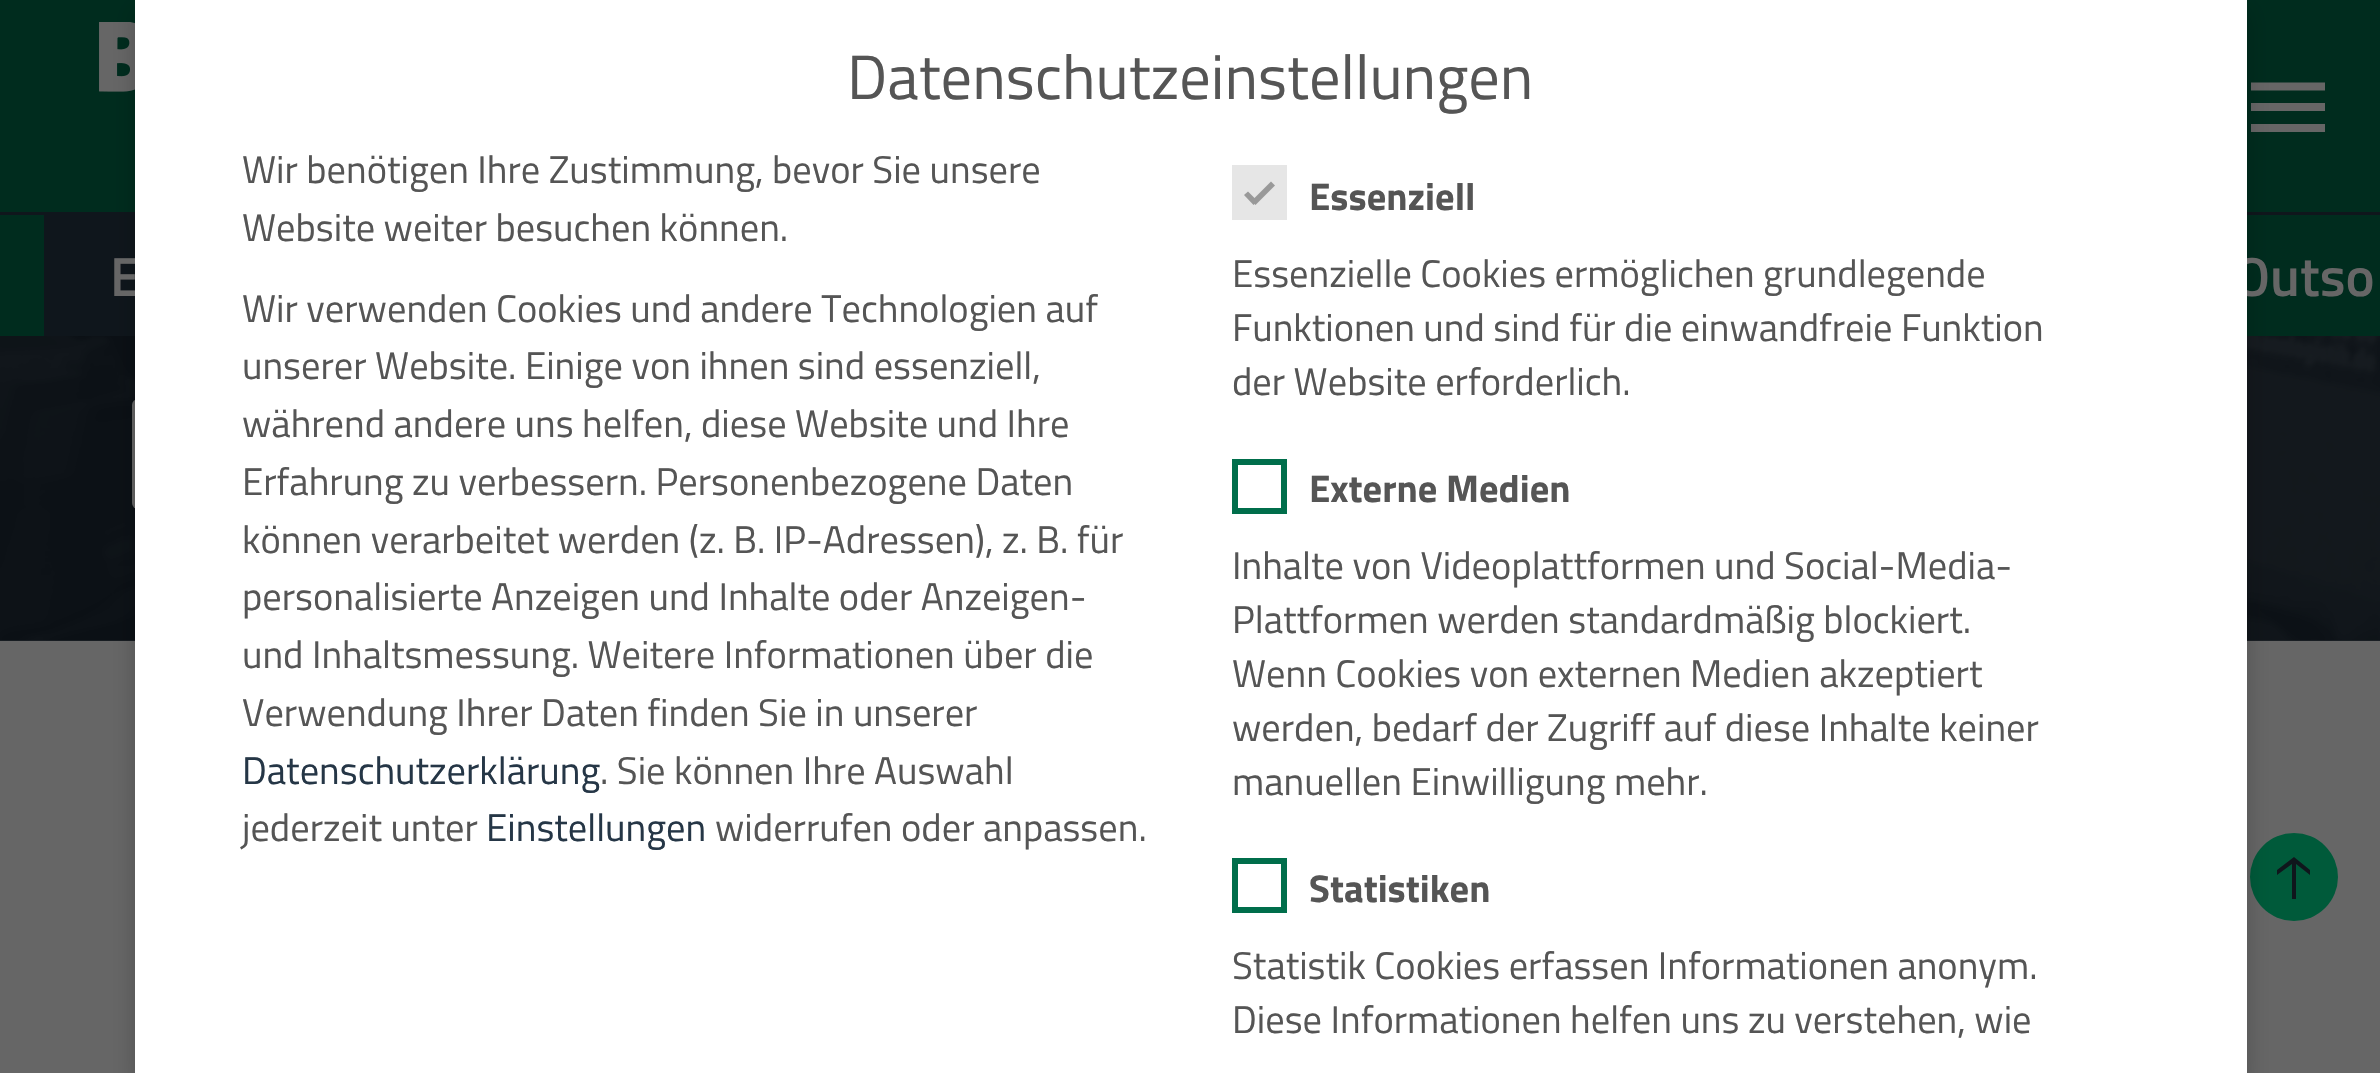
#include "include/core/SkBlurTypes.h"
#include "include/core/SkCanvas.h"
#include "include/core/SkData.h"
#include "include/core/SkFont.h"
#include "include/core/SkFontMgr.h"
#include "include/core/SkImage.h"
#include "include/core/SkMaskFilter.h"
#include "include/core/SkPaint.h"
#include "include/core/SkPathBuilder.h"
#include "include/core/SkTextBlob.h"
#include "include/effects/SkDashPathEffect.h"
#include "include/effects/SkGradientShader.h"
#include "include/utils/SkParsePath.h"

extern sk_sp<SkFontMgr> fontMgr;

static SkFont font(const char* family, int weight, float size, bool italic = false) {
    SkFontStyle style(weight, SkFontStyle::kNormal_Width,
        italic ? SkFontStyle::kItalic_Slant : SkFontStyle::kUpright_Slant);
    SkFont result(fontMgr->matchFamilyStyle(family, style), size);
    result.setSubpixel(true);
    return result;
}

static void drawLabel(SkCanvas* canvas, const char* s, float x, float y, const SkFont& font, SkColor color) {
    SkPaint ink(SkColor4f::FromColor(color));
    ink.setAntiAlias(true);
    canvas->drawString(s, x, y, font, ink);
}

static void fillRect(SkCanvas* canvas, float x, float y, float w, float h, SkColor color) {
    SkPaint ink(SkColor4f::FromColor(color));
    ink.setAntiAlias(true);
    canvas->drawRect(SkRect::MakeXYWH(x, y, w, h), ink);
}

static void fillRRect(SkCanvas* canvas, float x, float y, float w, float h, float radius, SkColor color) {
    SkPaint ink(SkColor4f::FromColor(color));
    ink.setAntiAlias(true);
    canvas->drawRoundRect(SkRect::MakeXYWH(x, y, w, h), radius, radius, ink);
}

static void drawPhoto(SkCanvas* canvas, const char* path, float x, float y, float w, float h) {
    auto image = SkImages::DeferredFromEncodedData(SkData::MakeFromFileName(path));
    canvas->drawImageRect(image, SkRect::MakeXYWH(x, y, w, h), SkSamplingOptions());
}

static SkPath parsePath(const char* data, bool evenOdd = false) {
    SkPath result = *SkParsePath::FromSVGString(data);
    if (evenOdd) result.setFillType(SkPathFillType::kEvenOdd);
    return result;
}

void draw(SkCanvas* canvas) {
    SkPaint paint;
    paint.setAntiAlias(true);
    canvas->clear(0xFF666666);
    fillRect(canvas, 0, 640, 2380, 1, 0xFF252A2F);
    fillRect(canvas, 0, 0, 2380, 212, 0xFF002C1E);
    drawPhoto(canvas, "assets/img1.png", 99, 22, 36, 70);
    paint.setStroke(true);
    paint.setStrokeWidth(8.2f);
    paint.setColor(0xFF666666);
    canvas->drawPath(parsePath("M2251 86.5H2325M2251 107H2325M2251 128H2325"), paint);
    fillRect(canvas, 0, 215, 2380, 121, 0xFF002C1E);
    fillRect(canvas, 0, 212, 2380, 3, 0xFF0F161C);
    fillRect(canvas, 44, 215, 91, 121, 0xFF0F161C);
    drawPhoto(canvas, "assets/img2.png", 0, 336, 2380, 305);
    fillRRect(canvas, 132, 399, 721, 110, 6, 0xFF666666);
    paint.setStroke(false);
    paint.setColor(0xFF005A3A);
    canvas->drawCircle(2294, 877, 44, paint);
    paint.setColor(0xFF0F161C);
    canvas->drawPath(parsePath("M2293 899H2292V864L2277 875V870L2294 857L2310 870V875L2296 864V899Z"), paint);
    paint.setColor(0x33000000);
    paint.setMaskFilter(SkMaskFilter::MakeBlur(kNormal_SkBlurStyle, 11));
    canvas->drawRect(SkRect::MakeXYWH(135, 11, 2112, 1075), paint);
    paint.setMaskFilter(nullptr);
    SkFont font1 = font("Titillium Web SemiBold", 600, 55);
    drawLabel(canvas, "E", 110, 296, font1, 0xFF666666);
    drawLabel(canvas, "Outso", 2234, 296, font1, 0xFF666666);
    fillRect(canvas, 135, 0, 2112, 1073, 0xFFFFFFFF);
    SkFont font2 = font("Titillium Web", 400, 62.5f);
    drawLabel(canvas, "Datenschutzeinstellungen", 847, 99, font2, 0xFF555555);
    SkFont font3 = font("Titillium Web", 400, 38.5f);
    drawLabel(canvas, "Wir benötigen Ihre Zustimmung, bevor Sie unsere", 242, 183, font3, 0xFF555555);
    drawLabel(canvas, "Website weiter besuchen können.", 242, 241, font3, 0xFF555555);
    drawLabel(canvas, "Wir verwenden Cookies und andere Technologien auf", 242, 322, font3, 0xFF555555);
    drawLabel(canvas, "unserer Website. Einige von ihnen sind essenziell,", 242, 379, font3, 0xFF555555);
    drawLabel(canvas, "während andere uns helfen, diese Website und Ihre", 242, 437, font3, 0xFF555555);
    drawLabel(canvas, "Erfahrung zu verbessern. Personenbezogene Daten", 242, 495, font3, 0xFF555555);
    drawLabel(canvas, "können verarbeitet werden (z. B. IP-Adressen), z. B. für", 242, 553, font3, 0xFF555555);
    drawLabel(canvas, "personalisierte Anzeigen und Inhalte oder Anzeigen-", 242, 610, font3, 0xFF555555);
    drawLabel(canvas, "und Inhaltsmessung. Weitere Informationen über die", 242, 668, font3, 0xFF555555);
    drawLabel(canvas, "Verwendung Ihrer Daten finden Sie in unserer", 242, 726, font3, 0xFF555555);
    drawLabel(canvas, "Datenschutzerklärung", 242, 784, font3, 0xFF253646);
    drawLabel(canvas, ". Sie können Ihre Auswahl", 600, 784, font3, 0xFF555555);
    drawLabel(canvas, "jederzeit unter", 242, 841, font3, 0xFF555555);
    drawLabel(canvas, "Einstellungen", 486, 841, font3, 0xFF253646);
    drawLabel(canvas, "widerrufen oder anpassen.", 715, 841, font3, 0xFF555555);
    fillRect(canvas, 1232, 165, 55, 55, 0xFFE6E6E6);
    paint.setColor(0xFF999999);
    canvas->drawPath(parsePath("M1271 181.5L1275 185.5L1255.5 205L1251.5 201Z"), paint);
    canvas->drawPath(parsePath("M1248 191.5L1257.5 201L1253.5 205L1244 195Z"), paint);
    SkFont font4 = font("Titillium Web", 700, 38.5f);
    drawLabel(canvas, "Essenziell", 1309, 210, font4, 0xFF555555);
    drawLabel(canvas, "Essenzielle Cookies ermöglichen grundlegende", 1232, 287, font3, 0xFF555555);
    drawLabel(canvas, "Funktionen und sind für die einwandfreie Funktion", 1232, 341, font3, 0xFF555555);
    drawLabel(canvas, "der Website erforderlich.", 1232, 395, font3, 0xFF555555);
    paint.setStroke(true);
    paint.setStrokeWidth(6);
    paint.setColor(0xFF006E4B);
    canvas->drawRect(SkRect::MakeXYWH(1235, 462, 49, 49), paint);
    drawLabel(canvas, "Externe Medien", 1309, 502, font4, 0xFF555555);
    drawLabel(canvas, "Inhalte von Videoplattformen und Social-Media-", 1232, 579, font3, 0xFF555555);
    drawLabel(canvas, "Plattformen werden standardmäßig blockiert.", 1232, 633, font3, 0xFF555555);
    drawLabel(canvas, "Wenn Cookies von externen Medien akzeptiert", 1232, 687, font3, 0xFF555555);
    drawLabel(canvas, "werden, bedarf der Zugriff auf diese Inhalte keiner", 1232, 741, font3, 0xFF555555);
    drawLabel(canvas, "manuellen Einwilligung mehr.", 1232, 795, font3, 0xFF555555);
    canvas->drawRect(SkRect::MakeXYWH(1235, 861, 49, 49), paint);
    drawLabel(canvas, "Statistiken", 1309, 902, font4, 0xFF555555);
    drawLabel(canvas, "Statistik Cookies erfassen Informationen anonym.", 1232, 979, font3, 0xFF555555);
    drawLabel(canvas, "Diese Informationen helfen uns zu verstehen, wie", 1232, 1033, font3, 0xFF555555);
}
